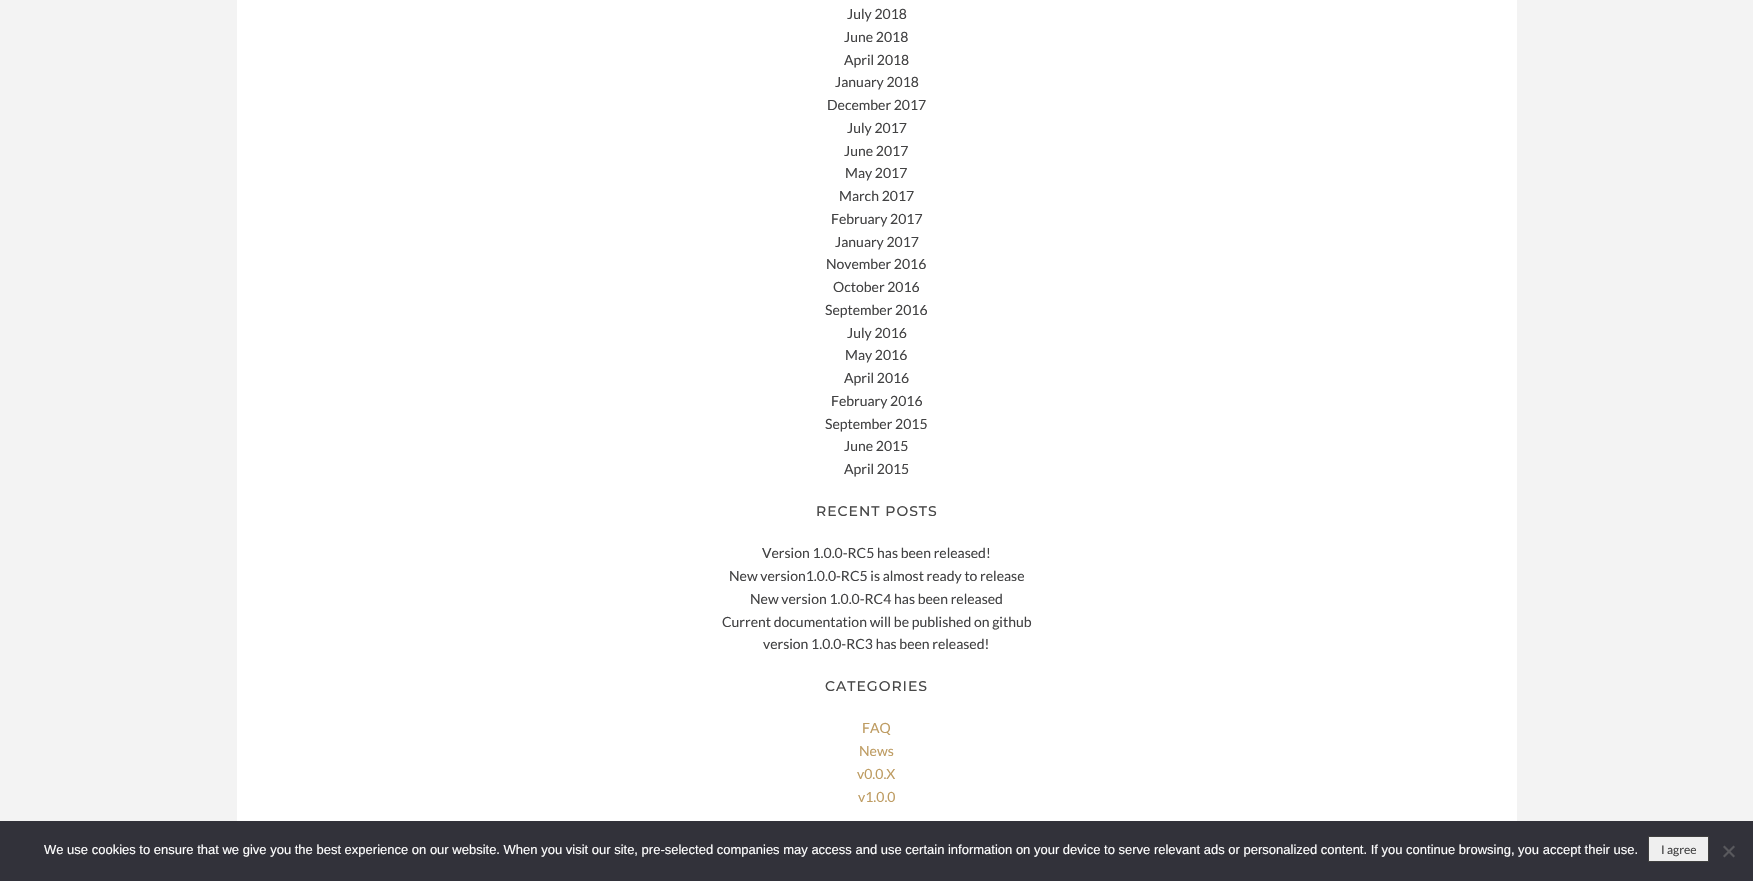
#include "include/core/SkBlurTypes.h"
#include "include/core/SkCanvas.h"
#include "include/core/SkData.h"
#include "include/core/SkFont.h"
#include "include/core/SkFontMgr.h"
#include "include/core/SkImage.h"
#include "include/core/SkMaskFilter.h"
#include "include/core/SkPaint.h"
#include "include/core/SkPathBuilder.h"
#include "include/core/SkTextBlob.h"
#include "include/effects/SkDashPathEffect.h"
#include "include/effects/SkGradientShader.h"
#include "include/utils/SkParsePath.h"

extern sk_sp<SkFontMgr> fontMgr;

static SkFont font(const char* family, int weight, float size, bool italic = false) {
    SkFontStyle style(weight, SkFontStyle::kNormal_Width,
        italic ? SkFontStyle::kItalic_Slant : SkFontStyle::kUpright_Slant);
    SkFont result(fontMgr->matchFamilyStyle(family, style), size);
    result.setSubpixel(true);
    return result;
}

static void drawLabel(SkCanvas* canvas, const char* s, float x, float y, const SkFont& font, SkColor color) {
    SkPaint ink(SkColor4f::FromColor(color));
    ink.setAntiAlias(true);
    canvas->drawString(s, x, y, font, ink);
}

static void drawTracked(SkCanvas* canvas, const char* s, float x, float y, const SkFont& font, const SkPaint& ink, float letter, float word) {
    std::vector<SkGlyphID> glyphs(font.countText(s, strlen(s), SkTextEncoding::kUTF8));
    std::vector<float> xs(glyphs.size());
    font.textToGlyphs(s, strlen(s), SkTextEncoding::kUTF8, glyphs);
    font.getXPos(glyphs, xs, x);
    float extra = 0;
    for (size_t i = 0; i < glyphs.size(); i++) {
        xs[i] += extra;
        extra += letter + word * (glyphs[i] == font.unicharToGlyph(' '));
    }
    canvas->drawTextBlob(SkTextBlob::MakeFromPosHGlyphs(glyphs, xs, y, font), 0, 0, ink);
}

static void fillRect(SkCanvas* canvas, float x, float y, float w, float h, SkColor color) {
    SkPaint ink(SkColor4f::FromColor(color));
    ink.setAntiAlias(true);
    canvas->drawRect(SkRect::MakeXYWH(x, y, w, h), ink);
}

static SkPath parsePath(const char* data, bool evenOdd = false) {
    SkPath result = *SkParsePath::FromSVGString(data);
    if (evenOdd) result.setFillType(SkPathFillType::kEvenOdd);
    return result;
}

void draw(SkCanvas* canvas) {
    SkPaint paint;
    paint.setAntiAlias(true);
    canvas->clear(0xFFF3F3F3);
    fillRect(canvas, 237, 0, 1280, 821, 0xFFFFFFFF);
    SkFont font1 = font("Lato", 400, 14);
    drawLabel(canvas, "July 2018", 847, 19, font1, 0xFF424243);
    drawLabel(canvas, "June 2018", 844, 42, font1, 0xFF424243);
    drawLabel(canvas, "April 2018", 844, 65, font1, 0xFF424243);
    drawLabel(canvas, "January 2018", 835, 87, font1, 0xFF424243);
    drawLabel(canvas, "December 2017", 827, 110, font1, 0xFF424243);
    drawLabel(canvas, "July 2017", 847, 133, font1, 0xFF424243);
    drawLabel(canvas, "June 2017", 844, 156, font1, 0xFF424243);
    drawLabel(canvas, "May 2017", 845, 178, font1, 0xFF424243);
    drawLabel(canvas, "March 2017", 839, 201, font1, 0xFF424243);
    drawLabel(canvas, "February 2017", 831, 224, font1, 0xFF424243);
    drawLabel(canvas, "January 2017", 835, 247, font1, 0xFF424243);
    drawLabel(canvas, "November 2016", 826, 269, font1, 0xFF424243);
    drawLabel(canvas, "October 2016", 833, 292, font1, 0xFF424243);
    drawLabel(canvas, "September 2016", 825, 315, font1, 0xFF424243);
    drawLabel(canvas, "July 2016", 847, 338, font1, 0xFF424243);
    drawLabel(canvas, "May 2016", 845, 360, font1, 0xFF424243);
    drawLabel(canvas, "April 2016", 844, 383, font1, 0xFF424243);
    drawLabel(canvas, "February 2016", 831, 406, font1, 0xFF424243);
    drawLabel(canvas, "September 2015", 825, 429, font1, 0xFF424243);
    drawLabel(canvas, "June 2015", 844, 451, font1, 0xFF424243);
    drawLabel(canvas, "April 2015", 844, 474, font1, 0xFF424243);
    SkFont font2 = font("Montserrat", 500, 14);
    paint.setColor(0xFF484848);
    drawTracked(canvas, "RECENT POSTS", 816, 516, font2, paint, 1, 0);
    drawLabel(canvas, "Version 1.0.0-RC5 has been released!", 762, 558, font1, 0xFF424243);
    drawLabel(canvas, "New version1.0.0-RC5 is almost ready to release", 729, 581, font1, 0xFF424243);
    drawLabel(canvas, "New version 1.0.0-RC4 has been released", 750, 604, font1, 0xFF424243);
    drawLabel(canvas, "Current documentation will be published on github", 722, 627, font1, 0xFF424243);
    drawLabel(canvas, "version 1.0.0-RC3 has been released!", 763, 649, font1, 0xFF424243);
    drawTracked(canvas, "CATEGORIES", 825, 691, font2, paint, 1, 0);
    drawLabel(canvas, "FAQ", 862, 733, font1, 0xFFBE9C62);
    drawLabel(canvas, "News", 859, 756, font1, 0xFFBE9C62);
    drawLabel(canvas, "v0.0.X", 857, 779, font1, 0xFFBE9C62);
    drawLabel(canvas, "v1.0.0", 858, 802, font1, 0xFFBE9C62);
    fillRect(canvas, 0, 821, 1753, 60, 0xFF32323A);
    SkFont font3 = font("Liberation Sans", 400, 13);
    drawLabel(canvas, "We use cookies to ensure that we give you the best experience on our website. When you visit our site, pre-selected companies may access and use certain information on your device to serve relevant ads or personalized content. If you continue browsing, you accept their use.", 44, 854, font3, 0xFFFFFFFF);
    paint.setColor(0xFFEFEFEF);
    canvas->drawRect(SkRect::MakeXYWH(1648.5f, 836.5f, 60, 25), paint);
    paint.setStroke(true);
    paint.setStrokeWidth(1);
    paint.setColor(0xFF404040);
    canvas->drawRect(SkRect::MakeXYWH(1648.5f, 836.5f, 60, 25), paint);
    SkFont font4 = font("Lato", 400, 12);
    drawLabel(canvas, "I agree", 1661, 854, font4, 0xFF424243);
    paint.setStroke(false);
    paint.setColor(0xFF59595D);
    canvas->drawPath(parsePath("M1733.5 845.5L1735 847L1724.5 857.5L1723 856Z"), paint);
    canvas->drawPath(parsePath("M1723 847L1724.5 845.5L1735 856L1733.5 857.5Z"), paint);
}
